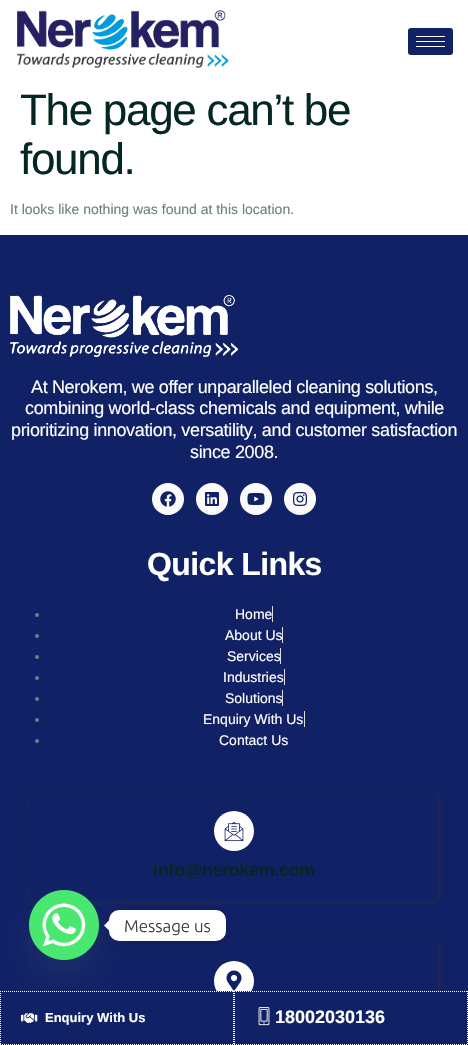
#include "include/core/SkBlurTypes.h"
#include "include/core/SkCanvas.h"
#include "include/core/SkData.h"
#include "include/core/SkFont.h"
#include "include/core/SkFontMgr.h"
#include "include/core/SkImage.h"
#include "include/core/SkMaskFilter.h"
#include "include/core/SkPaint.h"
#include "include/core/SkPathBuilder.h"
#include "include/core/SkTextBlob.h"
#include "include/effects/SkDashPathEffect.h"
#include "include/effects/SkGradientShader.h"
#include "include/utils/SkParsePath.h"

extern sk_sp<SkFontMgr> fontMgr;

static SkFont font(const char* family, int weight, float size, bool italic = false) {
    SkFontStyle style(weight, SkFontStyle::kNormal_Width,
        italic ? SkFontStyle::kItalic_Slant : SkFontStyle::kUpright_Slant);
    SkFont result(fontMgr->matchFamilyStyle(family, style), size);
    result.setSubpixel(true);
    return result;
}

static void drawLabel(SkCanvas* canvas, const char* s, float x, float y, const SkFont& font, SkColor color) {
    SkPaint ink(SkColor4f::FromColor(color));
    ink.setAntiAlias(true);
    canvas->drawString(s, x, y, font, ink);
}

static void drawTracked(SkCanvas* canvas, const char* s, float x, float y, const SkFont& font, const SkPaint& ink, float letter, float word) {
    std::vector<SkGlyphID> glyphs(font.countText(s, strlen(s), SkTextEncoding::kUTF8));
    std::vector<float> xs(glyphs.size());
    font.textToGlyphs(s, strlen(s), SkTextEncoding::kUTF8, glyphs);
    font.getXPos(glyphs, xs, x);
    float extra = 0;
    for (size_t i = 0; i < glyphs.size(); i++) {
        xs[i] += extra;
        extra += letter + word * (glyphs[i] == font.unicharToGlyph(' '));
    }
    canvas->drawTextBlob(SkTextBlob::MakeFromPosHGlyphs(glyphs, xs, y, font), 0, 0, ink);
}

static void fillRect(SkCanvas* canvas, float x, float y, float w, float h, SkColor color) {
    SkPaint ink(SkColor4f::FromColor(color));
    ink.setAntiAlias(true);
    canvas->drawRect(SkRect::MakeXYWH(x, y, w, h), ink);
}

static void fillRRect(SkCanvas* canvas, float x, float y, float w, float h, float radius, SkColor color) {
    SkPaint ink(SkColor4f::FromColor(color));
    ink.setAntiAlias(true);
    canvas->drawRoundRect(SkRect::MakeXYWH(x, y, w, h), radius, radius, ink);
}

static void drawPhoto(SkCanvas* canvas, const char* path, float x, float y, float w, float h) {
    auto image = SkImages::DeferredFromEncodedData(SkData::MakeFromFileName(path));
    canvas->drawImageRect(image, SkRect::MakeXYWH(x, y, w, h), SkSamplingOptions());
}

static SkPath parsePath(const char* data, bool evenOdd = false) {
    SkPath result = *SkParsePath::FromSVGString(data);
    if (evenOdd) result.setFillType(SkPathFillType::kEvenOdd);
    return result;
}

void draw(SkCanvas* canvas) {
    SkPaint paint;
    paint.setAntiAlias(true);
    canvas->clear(0xFFFFFFFF);
    drawPhoto(canvas, "assets/img1.png", 17, 10, 212, 58);
    fillRRect(canvas, 408, 28, 45, 27, 3, 0xFF112166);
    fillRect(canvas, 416, 36, 29, 1, 0xFFFFFFFF);
    fillRect(canvas, 416, 41, 29, 1, 0xFFFFFFFF);
    fillRect(canvas, 416, 46, 29, 1, 0xFFFFFFFF);
    SkFont font1 = font("Liberation Sans", 400, 44);
    paint.setColor(0xFF052723);
    drawTracked(canvas, "The page can’t be", 20, 125, font1, paint, -1.3f, 0);
    drawTracked(canvas, "found.", 20, 174, font1, paint, -1.3f, 0);
    SkFont font2 = font("Liberation Sans", 400, 14);
    drawLabel(canvas, "It looks like nothing was found at this location.", 10, 214, font2, 0xFF6A817E);
    fillRect(canvas, 0, 235, 468, 756, 0xFF112166);
    drawPhoto(canvas, "assets/img2.png", 10, 295, 228, 62);
    SkFont font3 = font("Liberation Sans", 400, 18);
    paint.setColor(0xFFFFFFFF);
    drawTracked(canvas, "At Nerokem, we offer unparalleled cleaning solutions,", 31, 393, font3, paint, -0.35f, 0);
    drawTracked(canvas, "combining world-class chemicals and equipment, while", 25, 414, font3, paint, -0.35f, 0);
    drawTracked(canvas, "prioritizing innovation, versatility, and customer satisfaction", 11, 436, font3, paint, -0.35f, 0);
    drawTracked(canvas, "since 2008.", 190, 458, font3, paint, -0.35f, 0);
    paint.setColor(0xFFFAFAFA);
    canvas->drawCircle(168, 499, 16, paint);
    drawPhoto(canvas, "assets/img3.png", 160, 491, 16, 16);
    canvas->drawCircle(212, 499, 16, paint);
    drawPhoto(canvas, "assets/img4.png", 205, 492, 14, 14);
    canvas->drawCircle(256, 499, 16, paint);
    drawPhoto(canvas, "assets/img5.png", 247, 493, 18, 12);
    canvas->drawCircle(300, 499, 16, paint);
    drawPhoto(canvas, "assets/img6.png", 293, 492, 14, 14);
    SkFont font4 = font("Liberation Sans", 700, 32);
    paint.setColor(0xFFFFFFFF);
    drawTracked(canvas, "Quick Links", 147, 575, font4, paint, -0.6f, 0);
    paint.setColor(0xFF6A817E);
    canvas->drawCircle(37, 615, 2, paint);
    drawLabel(canvas, "Home", 235, 619, font2, 0xFFFFFFFF);
    fillRect(canvas, 272, 606, 1, 16, 0xFFDDDDDD);
    canvas->drawCircle(37, 636, 2, paint);
    drawLabel(canvas, "About Us", 225, 640, font2, 0xFFFFFFFF);
    fillRect(canvas, 282, 627, 1, 16, 0xFFDDDDDD);
    canvas->drawCircle(37, 657, 2, paint);
    drawLabel(canvas, "Services", 227, 661, font2, 0xFFFFFFFF);
    fillRect(canvas, 280, 648, 1, 16, 0xFFDDDDDD);
    canvas->drawCircle(37, 678, 2, paint);
    drawLabel(canvas, "Industries", 223, 682, font2, 0xFFFFFFFF);
    fillRect(canvas, 284, 669, 1, 16, 0xFFDDDDDD);
    canvas->drawCircle(37, 699, 2, paint);
    drawLabel(canvas, "Solutions", 225, 703, font2, 0xFFFFFFFF);
    fillRect(canvas, 282, 690, 1, 16, 0xFFDDDDDD);
    canvas->drawCircle(37, 720, 2, paint);
    drawLabel(canvas, "Enquiry With Us", 203, 724, font2, 0xFFFFFFFF);
    fillRect(canvas, 304, 711, 1, 16, 0xFFDDDDDD);
    canvas->drawCircle(37, 741, 2, paint);
    drawLabel(canvas, "Contact Us", 219, 745, font2, 0xFFFFFFFF);
    canvas->save();
    canvas->clipPath(parsePath("M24 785H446V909H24ZM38 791H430C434.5 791 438 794.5 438 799V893C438 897.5 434.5 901 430 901H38C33.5 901 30 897.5 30 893V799C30 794.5 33.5 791 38 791Z", true), true);
    paint.setColor(0x9E323030);
    paint.setMaskFilter(SkMaskFilter::MakeBlur(kNormal_SkBlurStyle, 2));
    canvas->drawRoundRect(SkRect::MakeXYWH(31, 792, 408, 110), 8, 8, paint);
    paint.setMaskFilter(nullptr);
    canvas->restore();
    paint.setColor(0xFFFFFFFF);
    canvas->drawCircle(234, 831, 20, paint);
    drawPhoto(canvas, "assets/img7.png", 224, 822, 20, 20);
    SkFont font5 = font("Liberation Sans", 700, 18);
    paint.setColor(0xFF052723);
    drawTracked(canvas, "info@nerokem.com", 153, 876, font5, paint, -0.35f, 0);
    canvas->save();
    canvas->clipPath(parsePath("M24 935H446V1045H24ZM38 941H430C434.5 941 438 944.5 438 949V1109C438 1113.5 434.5 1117 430 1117H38C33.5 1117 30 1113.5 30 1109V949C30 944.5 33.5 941 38 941Z", true), true);
    paint.setColor(0x9E323030);
    paint.setMaskFilter(SkMaskFilter::MakeBlur(kNormal_SkBlurStyle, 2));
    canvas->drawRoundRect(SkRect::MakeXYWH(31, 942, 408, 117), 8, 8, paint);
    paint.setMaskFilter(nullptr);
    canvas->restore();
    paint.setColor(0xFFFFFFFF);
    canvas->drawCircle(234, 981, 20, paint);
    drawPhoto(canvas, "assets/img8.png", 226, 970, 16, 21);
    fillRect(canvas, 0, 991, 468, 54, 0xFF112166);
    paint.setStroke(true);
    paint.setStrokeWidth(1);
    paint.setPathEffect(SkDashPathEffect::Make({{1, 1}}, 0));
    canvas->drawPath(parsePath("M0 991.5H234"), paint);
    paint.setPathEffect(nullptr);
    paint.setPathEffect(SkDashPathEffect::Make({{1, 1}}, 0));
    canvas->drawPath(parsePath("M233.5 991V1045"), paint);
    paint.setPathEffect(nullptr);
    paint.setPathEffect(SkDashPathEffect::Make({{1, 1}}, 0));
    canvas->drawPath(parsePath("M0 1044.5H234"), paint);
    paint.setPathEffect(nullptr);
    paint.setPathEffect(SkDashPathEffect::Make({{1, 1}}, 0));
    canvas->drawPath(parsePath("M.5 991V1045"), paint);
    paint.setPathEffect(nullptr);
    drawPhoto(canvas, "assets/img9.png", 21, 1013, 17, 10);
    SkFont font6 = font("Liberation Sans", 700, 13);
    drawLabel(canvas, "Enquiry With Us", 45, 1022, font6, 0xFFFFFFFF);
    paint.setPathEffect(SkDashPathEffect::Make({{1, 1}}, 0));
    canvas->drawPath(parsePath("M234 991.5H468"), paint);
    paint.setPathEffect(nullptr);
    paint.setPathEffect(SkDashPathEffect::Make({{1, 1}}, 0));
    canvas->drawPath(parsePath("M467.5 991V1045"), paint);
    paint.setPathEffect(nullptr);
    paint.setPathEffect(SkDashPathEffect::Make({{1, 1}}, 0));
    canvas->drawPath(parsePath("M234 1044.5H468"), paint);
    paint.setPathEffect(nullptr);
    paint.setPathEffect(SkDashPathEffect::Make({{1, 1}}, 0));
    canvas->drawPath(parsePath("M234.5 991V1045"), paint);
    paint.setPathEffect(nullptr);
    drawPhoto(canvas, "assets/img10.png", 258, 1007, 12, 19);
    drawLabel(canvas, "18002030136", 275, 1023, font5, 0xFFFFFFFF);
    paint.setStroke(false);
    paint.setColor(0x2949687E);
    paint.setMaskFilter(SkMaskFilter::MakeBlur(kNormal_SkBlurStyle, 12));
    canvas->drawRoundRect(SkRect::MakeXYWH(29, 906, 70, 70), 35, 35, paint);
    paint.setMaskFilter(nullptr);
    drawPhoto(canvas, "assets/img11.png", 29, 890, 70, 70);
    paint.setColor(0x26000000);
    paint.setMaskFilter(SkMaskFilter::MakeBlur(kNormal_SkBlurStyle, 4));
    canvas->drawRoundRect(SkRect::MakeXYWH(109, 911, 117, 31), 10, 10, paint);
    paint.setMaskFilter(nullptr);
    fillRRect(canvas, 109, 910, 117, 31, 10, 0xFFFFFFFF);
    paint.setColor(0xFFFFFFFF);
    canvas->drawPath(parsePath("M109 920.5V930.5L104 925.5Z"), paint);
    SkFont font7 = font("Ubuntu", 300, 17);
    drawLabel(canvas, "Message us", 124, 932, font7, 0xFF333333);
}
